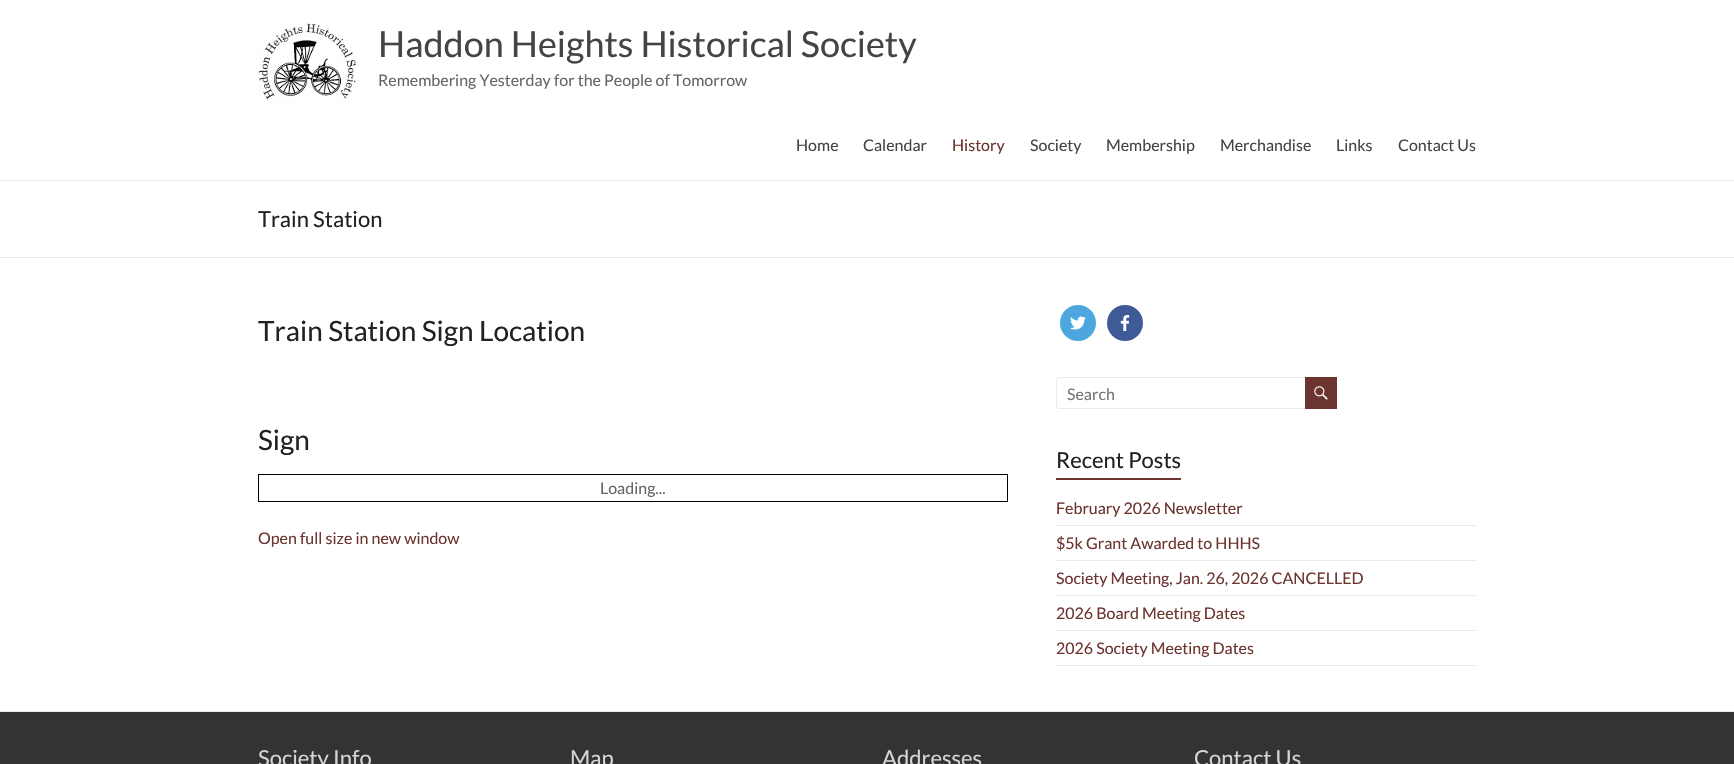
#include "include/core/SkBlurTypes.h"
#include "include/core/SkCanvas.h"
#include "include/core/SkData.h"
#include "include/core/SkFont.h"
#include "include/core/SkFontMgr.h"
#include "include/core/SkImage.h"
#include "include/core/SkMaskFilter.h"
#include "include/core/SkPaint.h"
#include "include/core/SkPathBuilder.h"
#include "include/core/SkTextBlob.h"
#include "include/effects/SkDashPathEffect.h"
#include "include/effects/SkGradientShader.h"
#include "include/utils/SkParsePath.h"

extern sk_sp<SkFontMgr> fontMgr;

static SkFont font(const char* family, int weight, float size, bool italic = false) {
    SkFontStyle style(weight, SkFontStyle::kNormal_Width,
        italic ? SkFontStyle::kItalic_Slant : SkFontStyle::kUpright_Slant);
    SkFont result(fontMgr->matchFamilyStyle(family, style), size);
    result.setSubpixel(true);
    return result;
}

static void drawLabel(SkCanvas* canvas, const char* s, float x, float y, const SkFont& font, SkColor color) {
    SkPaint ink(SkColor4f::FromColor(color));
    ink.setAntiAlias(true);
    canvas->drawString(s, x, y, font, ink);
}

static void fillRect(SkCanvas* canvas, float x, float y, float w, float h, SkColor color) {
    SkPaint ink(SkColor4f::FromColor(color));
    ink.setAntiAlias(true);
    canvas->drawRect(SkRect::MakeXYWH(x, y, w, h), ink);
}

static void drawPhoto(SkCanvas* canvas, const char* path, float x, float y, float w, float h) {
    auto image = SkImages::DeferredFromEncodedData(SkData::MakeFromFileName(path));
    canvas->drawImageRect(image, SkRect::MakeXYWH(x, y, w, h), SkSamplingOptions());
}

void draw(SkCanvas* canvas) {
    SkPaint paint;
    paint.setAntiAlias(true);
    canvas->clear(0xFFFFFFFF);
    fillRect(canvas, 0, 180, 1734, 1, 0xFFEAEAEA);
    drawPhoto(canvas, "assets/img1.png", 258, 23, 100, 79);
    SkFont font1 = font("Lato", 400, 36);
    drawLabel(canvas, "Haddon Heights Historical Society", 378, 57, font1, 0xFF444444);
    SkFont font2 = font("Lato", 400, 16);
    drawLabel(canvas, "Remembering Yesterday for the People of Tomorrow", 378, 86, font2, 0xFF666666);
    drawLabel(canvas, "Home", 796, 151, font2, 0xFF444444);
    drawLabel(canvas, "Calendar", 863, 151, font2, 0xFF444444);
    drawLabel(canvas, "History", 952, 151, font2, 0xFF6C342F);
    drawLabel(canvas, "Society", 1030, 151, font2, 0xFF444444);
    drawLabel(canvas, "Membership", 1106, 151, font2, 0xFF444444);
    drawLabel(canvas, "Merchandise", 1220, 151, font2, 0xFF444444);
    drawLabel(canvas, "Links", 1336, 151, font2, 0xFF444444);
    drawLabel(canvas, "Contact Us", 1398, 151, font2, 0xFF444444);
    fillRect(canvas, 0, 257, 1734, 1, 0xFFEAEAEA);
    SkFont font3 = font("Lato", 400, 22);
    drawLabel(canvas, "Train Station", 258, 227, font3, 0xFF222222);
    SkFont font4 = font("Lato", 400, 28);
    drawLabel(canvas, "Train Station Sign Location", 258, 341, font4, 0xFF222222);
    drawLabel(canvas, "Sign", 258, 450, font4, 0xFF222222);
    paint.setStroke(true);
    paint.setStrokeWidth(1);
    paint.setColor(0xFF000000);
    canvas->drawRect(SkRect::MakeXYWH(258.5f, 474.5f, 749, 27), paint);
    drawLabel(canvas, "Loading...", 600, 494, font2, 0xFF666666);
    drawLabel(canvas, "Open full size in new window", 258, 544, font2, 0xFF6C342F);
    paint.setStroke(false);
    paint.setColor(0xFF4DA7DE);
    canvas->drawCircle(1078, 323, 18, paint);
    drawPhoto(canvas, "assets/img2.png", 1070, 316, 16, 14);
    paint.setColor(0xFF3E5B98);
    canvas->drawCircle(1125, 323, 18, paint);
    drawPhoto(canvas, "assets/img3.png", 1120, 315, 10, 16);
    paint.setStroke(true);
    paint.setColor(0xFFEAEAEA);
    canvas->drawRoundRect(SkRect::MakeXYWH(1056.5f, 377.5f, 251, 31), 2.5f, 2.5f, paint);
    drawLabel(canvas, "Search", 1067, 400, font2, 0xFF757575);
    fillRect(canvas, 1305, 377, 32, 32, 0xFF6C342F);
    drawPhoto(canvas, "assets/img4.png", 1314, 386, 14, 14);
    drawLabel(canvas, "Recent Posts", 1056, 468, font3, 0xFF222222);
    fillRect(canvas, 1056, 478, 125, 2, 0xFF6C342F);
    fillRect(canvas, 1056, 525, 420, 1, 0xFFEAEAEA);
    drawLabel(canvas, "February 2026 Newsletter", 1056, 514, font2, 0xFF6C342F);
    fillRect(canvas, 1056, 560, 420, 1, 0xFFEAEAEA);
    drawLabel(canvas, "$5k Grant Awarded to HHHS", 1056, 549, font2, 0xFF6C342F);
    fillRect(canvas, 1056, 595, 420, 1, 0xFFEAEAEA);
    drawLabel(canvas, "Society Meeting, Jan. 26, 2026 CANCELLED", 1056, 584, font2, 0xFF6C342F);
    fillRect(canvas, 1056, 630, 420, 1, 0xFFEAEAEA);
    drawLabel(canvas, "2026 Board Meeting Dates", 1056, 619, font2, 0xFF6C342F);
    fillRect(canvas, 1056, 665, 420, 1, 0xFFEAEAEA);
    drawLabel(canvas, "2026 Society Meeting Dates", 1056, 654, font2, 0xFF6C342F);
    fillRect(canvas, 0, 712, 1734, 52, 0xFF333333);
    fillRect(canvas, 0, 711, 1734, 1, 0xFFEAEAEA);
    drawLabel(canvas, "Society Info", 258, 766, font3, 0xFFD5D5D5);
    drawLabel(canvas, "Map", 570, 766, font3, 0xFFD5D5D5);
    drawLabel(canvas, "Addresses", 882, 766, font3, 0xFFD5D5D5);
    drawLabel(canvas, "Contact Us", 1194, 766, font3, 0xFFD5D5D5);
}
